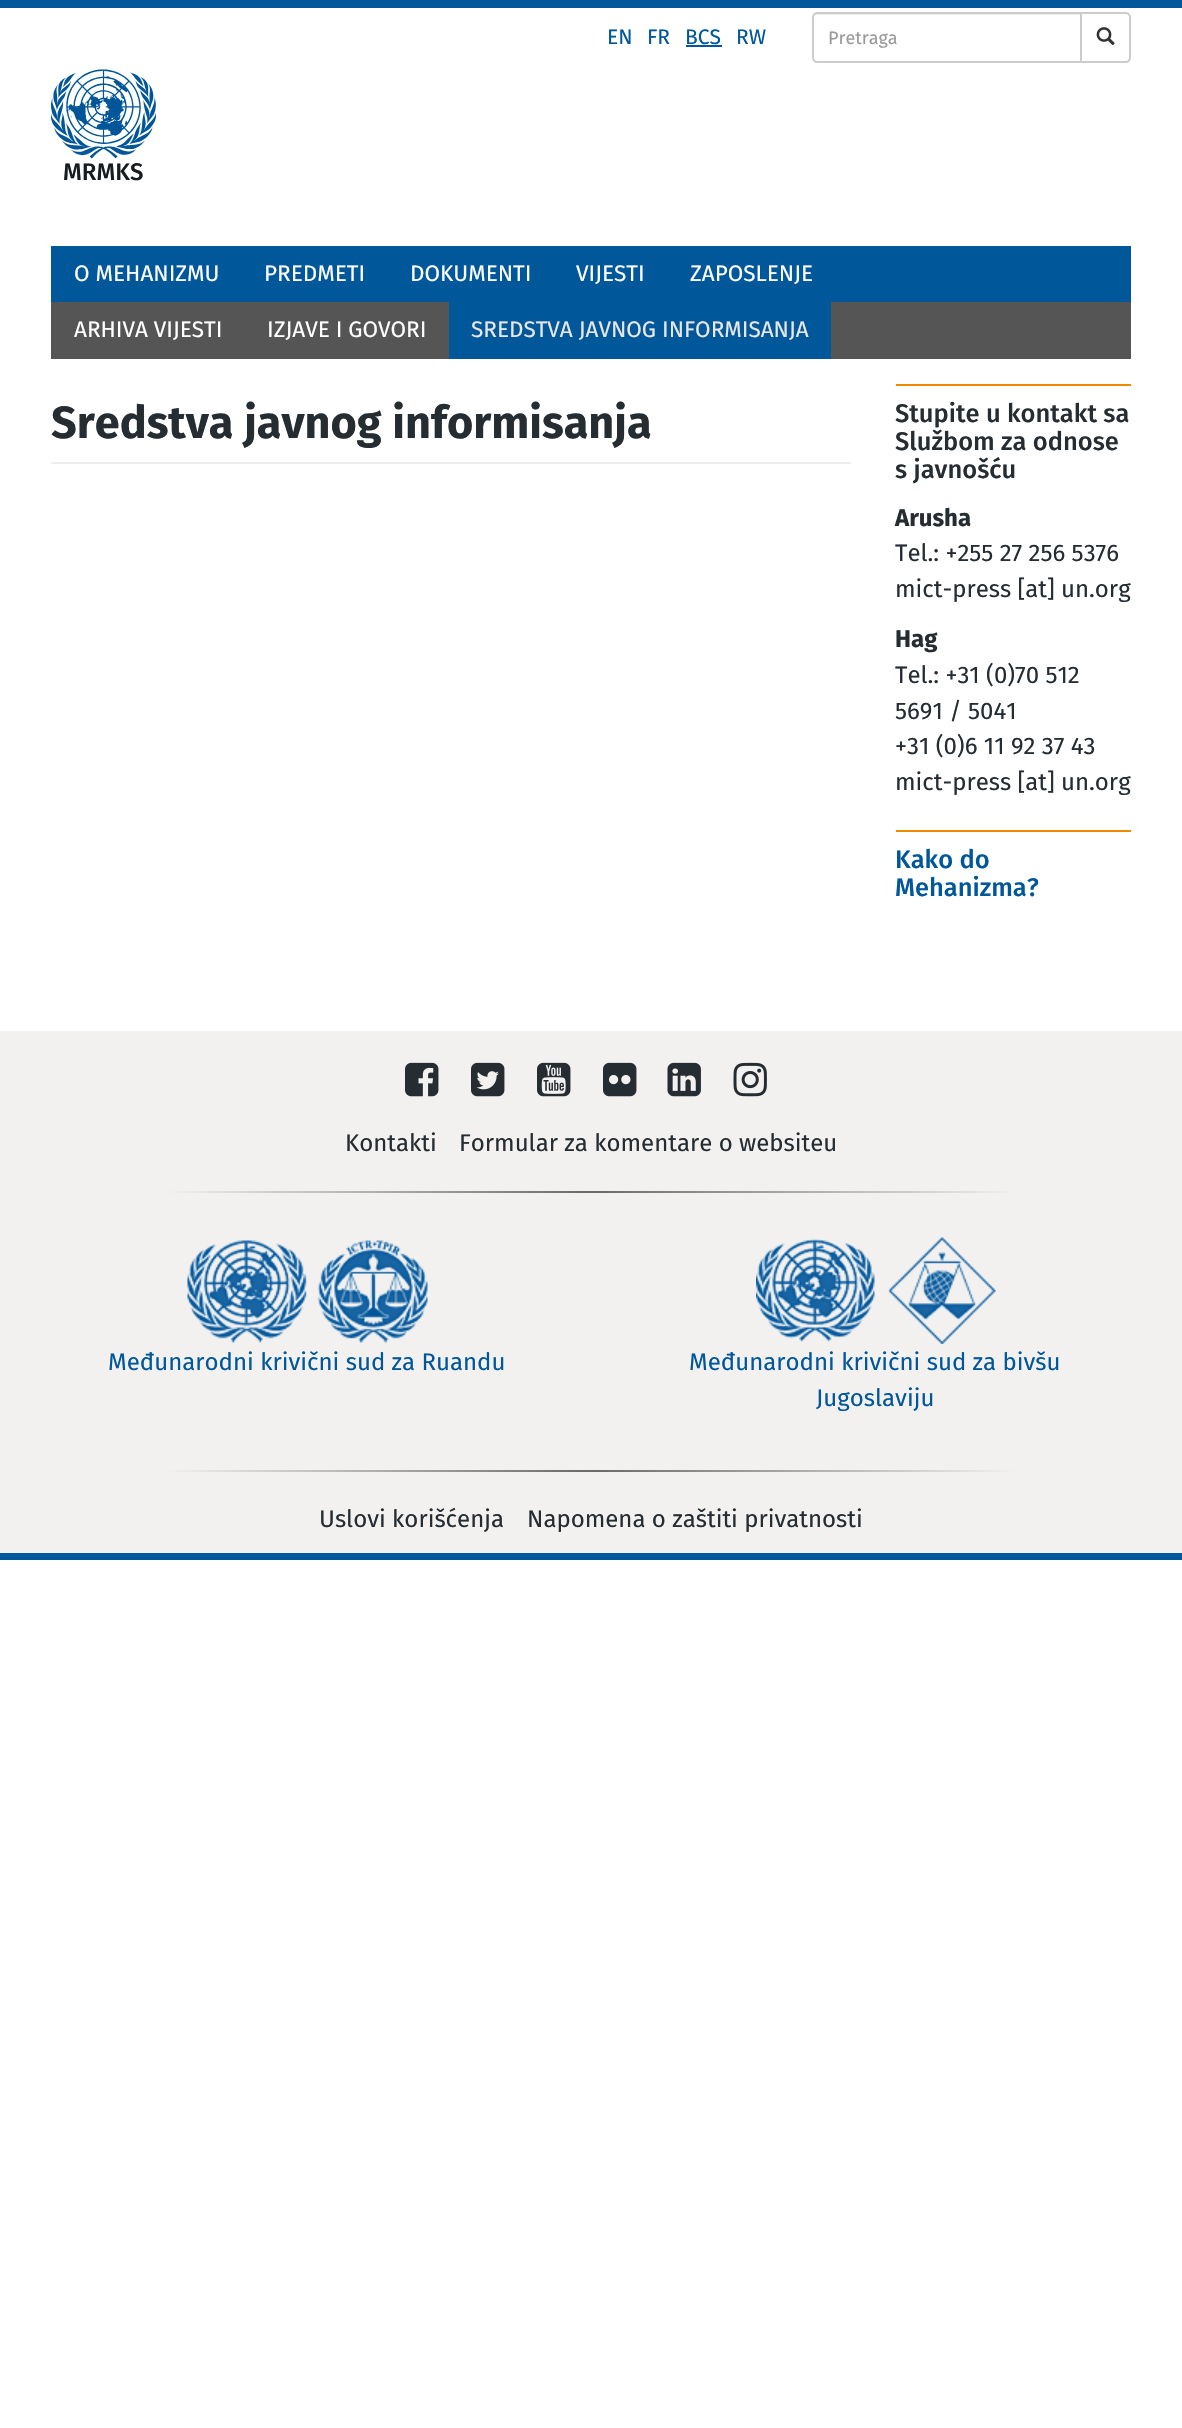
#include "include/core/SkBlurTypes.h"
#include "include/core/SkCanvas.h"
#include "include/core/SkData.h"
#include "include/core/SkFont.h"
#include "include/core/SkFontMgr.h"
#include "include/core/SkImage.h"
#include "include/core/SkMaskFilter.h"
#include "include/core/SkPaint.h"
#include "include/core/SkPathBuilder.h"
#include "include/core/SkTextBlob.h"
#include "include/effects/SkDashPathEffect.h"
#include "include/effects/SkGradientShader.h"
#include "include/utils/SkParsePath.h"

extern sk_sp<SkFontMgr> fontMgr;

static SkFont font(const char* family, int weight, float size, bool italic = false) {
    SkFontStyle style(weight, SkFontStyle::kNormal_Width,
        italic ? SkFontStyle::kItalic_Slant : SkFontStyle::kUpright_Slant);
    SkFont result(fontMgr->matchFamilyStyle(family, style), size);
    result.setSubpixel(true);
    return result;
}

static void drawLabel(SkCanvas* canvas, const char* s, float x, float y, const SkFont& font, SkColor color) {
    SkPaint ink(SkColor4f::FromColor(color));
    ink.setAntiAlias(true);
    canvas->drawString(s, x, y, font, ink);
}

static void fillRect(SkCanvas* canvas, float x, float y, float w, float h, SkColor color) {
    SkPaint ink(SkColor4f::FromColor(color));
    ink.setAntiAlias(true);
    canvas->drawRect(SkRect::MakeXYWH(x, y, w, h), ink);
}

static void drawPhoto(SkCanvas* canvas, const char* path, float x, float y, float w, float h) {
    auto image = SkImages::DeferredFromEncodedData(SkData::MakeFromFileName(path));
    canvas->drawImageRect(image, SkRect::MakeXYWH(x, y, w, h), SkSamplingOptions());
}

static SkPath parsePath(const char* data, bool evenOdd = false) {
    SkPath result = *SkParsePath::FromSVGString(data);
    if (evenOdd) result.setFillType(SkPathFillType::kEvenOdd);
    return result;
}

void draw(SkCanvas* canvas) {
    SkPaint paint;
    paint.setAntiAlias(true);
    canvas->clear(0xFFFFFFFF);
    fillRect(canvas, 0, 0, 1182, 8, 0xFF00579A);
    fillRect(canvas, 0, 1553, 1182, 7, 0xFF00579A);
    SkFont font1 = font("Fira Sans", 400, 21);
    drawLabel(canvas, "EN", 607, 44, font1, 0xFF00579A);
    drawLabel(canvas, "FR", 647, 44, font1, 0xFF00579A);
    drawLabel(canvas, "BCS", 685, 44, font1, 0xFF00579A);
    fillRect(canvas, 686, 45, 36, 2, 0xFF00579A);
    drawLabel(canvas, "RW", 736, 44, font1, 0xFF00579A);
    paint.setColor(0xFFECECEC);
    canvas->drawPath(parsePath("M816 15H1080V14H816C814 14 813 15 813 17V18C813 16 814 15 816 15Z"), paint);
    paint.setStroke(true);
    paint.setStrokeWidth(2);
    paint.setColor(0xFFCCCCCC);
    canvas->drawPath(parsePath("M817 13H1081V62H817C815 62 813 60 813 58V17C813 15 815 13 817 13Z"), paint);
    SkFont font2 = font("Fira Sans", 400, 18);
    drawLabel(canvas, "Pretraga", 828, 44, font2, 0xFF999999);
    paint.setStroke(false);
    paint.setColor(0xFFFFFFFF);
    canvas->drawPath(parsePath("M1081 13H1126C1128 13 1130 15 1130 17V58C1130 60 1128 62 1126 62H1081Z"), paint);
    paint.setStroke(true);
    paint.setColor(0xFFCCCCCC);
    canvas->drawPath(parsePath("M1081 13H1126C1128 13 1130 15 1130 17V58C1130 60 1128 62 1126 62H1081Z"), paint);
    drawPhoto(canvas, "assets/img1.png", 1096, 27, 19, 19);
    drawPhoto(canvas, "assets/img2.png", 51, 69, 105, 90);
    SkFont font3 = font("Fira Sans", 500, 24);
    drawLabel(canvas, "MRMKS", 63, 180, font3, 0xFF171C20);
    fillRect(canvas, 51, 246, 1080, 56, 0xFF00579A);
    SkFont font4 = font("Fira Sans", 400, 22.5f);
    drawLabel(canvas, "VIJESTI", 576, 281, font4, 0xFFFFFFFF);
    fillRect(canvas, 51, 302, 1080, 57, 0xFF555555);
    drawLabel(canvas, "ARHIVA VIJESTI", 74, 337, font4, 0xFFFFFFFF);
    drawLabel(canvas, "IZJAVE I GOVORI", 267, 337, font4, 0xFFFFFFFF);
    fillRect(canvas, 449, 302, 382, 57, 0xFF00579A);
    drawLabel(canvas, "SREDSTVA JAVNOG INFORMISANJA", 471, 337, font4, 0xFFE9E7E4);
    drawLabel(canvas, "O MEHANIZMU", 74, 281, font4, 0xFFFFFFFF);
    drawLabel(canvas, "PREDMETI", 264, 281, font4, 0xFFFFFFFF);
    drawLabel(canvas, "DOKUMENTI", 410, 281, font4, 0xFFFFFFFF);
    drawLabel(canvas, "ZAPOSLENJE", 690, 281, font4, 0xFFFFFFFF);
    fillRect(canvas, 51, 462, 800, 2, 0xFFEEEEEE);
    SkFont font5 = font("Fira Sans", 700, 45);
    drawLabel(canvas, "Sredstva javnog informisanja", 51, 438, font5, 0xFF252D33);
    fillRect(canvas, 896, 384, 235, 2, 0xFFEF8900);
    SkFont font6 = font("Fira Sans", 500, 25.5f);
    drawLabel(canvas, "Stupite u kontakt sa", 895, 422, font6, 0xFF252D33);
    drawLabel(canvas, "Službom za odnose", 895, 450, font6, 0xFF252D33);
    drawLabel(canvas, "s javnošću", 895, 478, font6, 0xFF252D33);
    SkFont font7 = font("Fira Sans", 700, 24);
    drawLabel(canvas, "Arusha", 895, 526, font7, 0xFF252D33);
    SkFont font8 = font("Fira Sans", 400, 24);
    drawLabel(canvas, "Tel.: +255 27 256 5376", 895, 561, font8, 0xFF252D33);
    drawLabel(canvas, "mict-press [at] un.org", 895, 597, font8, 0xFF252D33);
    drawLabel(canvas, "Hag", 895, 647, font7, 0xFF252D33);
    drawLabel(canvas, "Tel.: +31 (0)70 512", 895, 683, font8, 0xFF252D33);
    drawLabel(canvas, "5691 / 5041", 895, 719, font8, 0xFF252D33);
    drawLabel(canvas, "+31 (0)6 11 92 37 43", 895, 754, font8, 0xFF252D33);
    drawLabel(canvas, "mict-press [at] un.org", 895, 790, font8, 0xFF252D33);
    fillRect(canvas, 896, 830, 235, 2, 0xFFEF8900);
    drawLabel(canvas, "Kako do", 895, 868, font6, 0xFF00579A);
    drawLabel(canvas, "Mehanizma?", 895, 896, font6, 0xFF00579A);
    fillRect(canvas, 0, 1031, 1182, 522, 0xFFF2F1EF);
    drawPhoto(canvas, "assets/img3.png", 405, 1062, 34, 35);
    drawPhoto(canvas, "assets/img4.png", 471, 1062, 34, 35);
    drawPhoto(canvas, "assets/img5.png", 537, 1062, 34, 35);
    drawPhoto(canvas, "assets/img6.png", 603, 1062, 34, 35);
    drawPhoto(canvas, "assets/img7.png", 667, 1062, 34, 35);
    drawPhoto(canvas, "assets/img8.png", 733, 1062, 34, 35);
    drawLabel(canvas, "Kontakti", 345, 1151, font8, 0xFF252D33);
    drawLabel(canvas, "Formular za komentare o websiteu", 459, 1151, font8, 0xFF252D33);
    paint.setStroke(false);
    {
        const SkColor colors[] = {0xFFF2F1EF, 0xFF6B6965, 0xFFF2F1EF};
        const float stops[] = {0, 0.5f, 1};
        const SkPoint ends[] = {{1017, 1192}, {165, 1192}};
        paint.setShader(SkGradientShader::MakeLinear(ends, colors, stops, 3, SkTileMode::kClamp));
        paint.setAlpha(255);
    }
    canvas->drawRect(SkRect::MakeXYWH(165, 1191, 852, 2), paint);
    drawPhoto(canvas, "assets/img9.png", 187, 1240, 241, 103);
    drawLabel(canvas, "Međunarodni krivični sud za Ruandu", 108, 1370, font8, 0xFF00579A);
    drawPhoto(canvas, "assets/img10.png", 756, 1237, 240, 107);
    drawLabel(canvas, "Međunarodni krivični sud za bivšu", 689, 1370, font8, 0xFF00579A);
    drawLabel(canvas, "Jugoslaviju", 816, 1406, font8, 0xFF00579A);
    {
        const SkColor colors[] = {0xFFF2F1EF, 0xFF6B6965, 0xFFF2F1EF};
        const float stops[] = {0, 0.5f, 1};
        const SkPoint ends[] = {{1017, 1471}, {165, 1471}};
        paint.setShader(SkGradientShader::MakeLinear(ends, colors, stops, 3, SkTileMode::kClamp));
        paint.setAlpha(255);
    }
    canvas->drawRect(SkRect::MakeXYWH(165, 1470, 852, 2), paint);
    drawLabel(canvas, "Uslovi korišćenja", 319, 1527, font8, 0xFF252D33);
    drawLabel(canvas, "Napomena o zaštiti privatnosti", 527, 1527, font8, 0xFF252D33);
}
